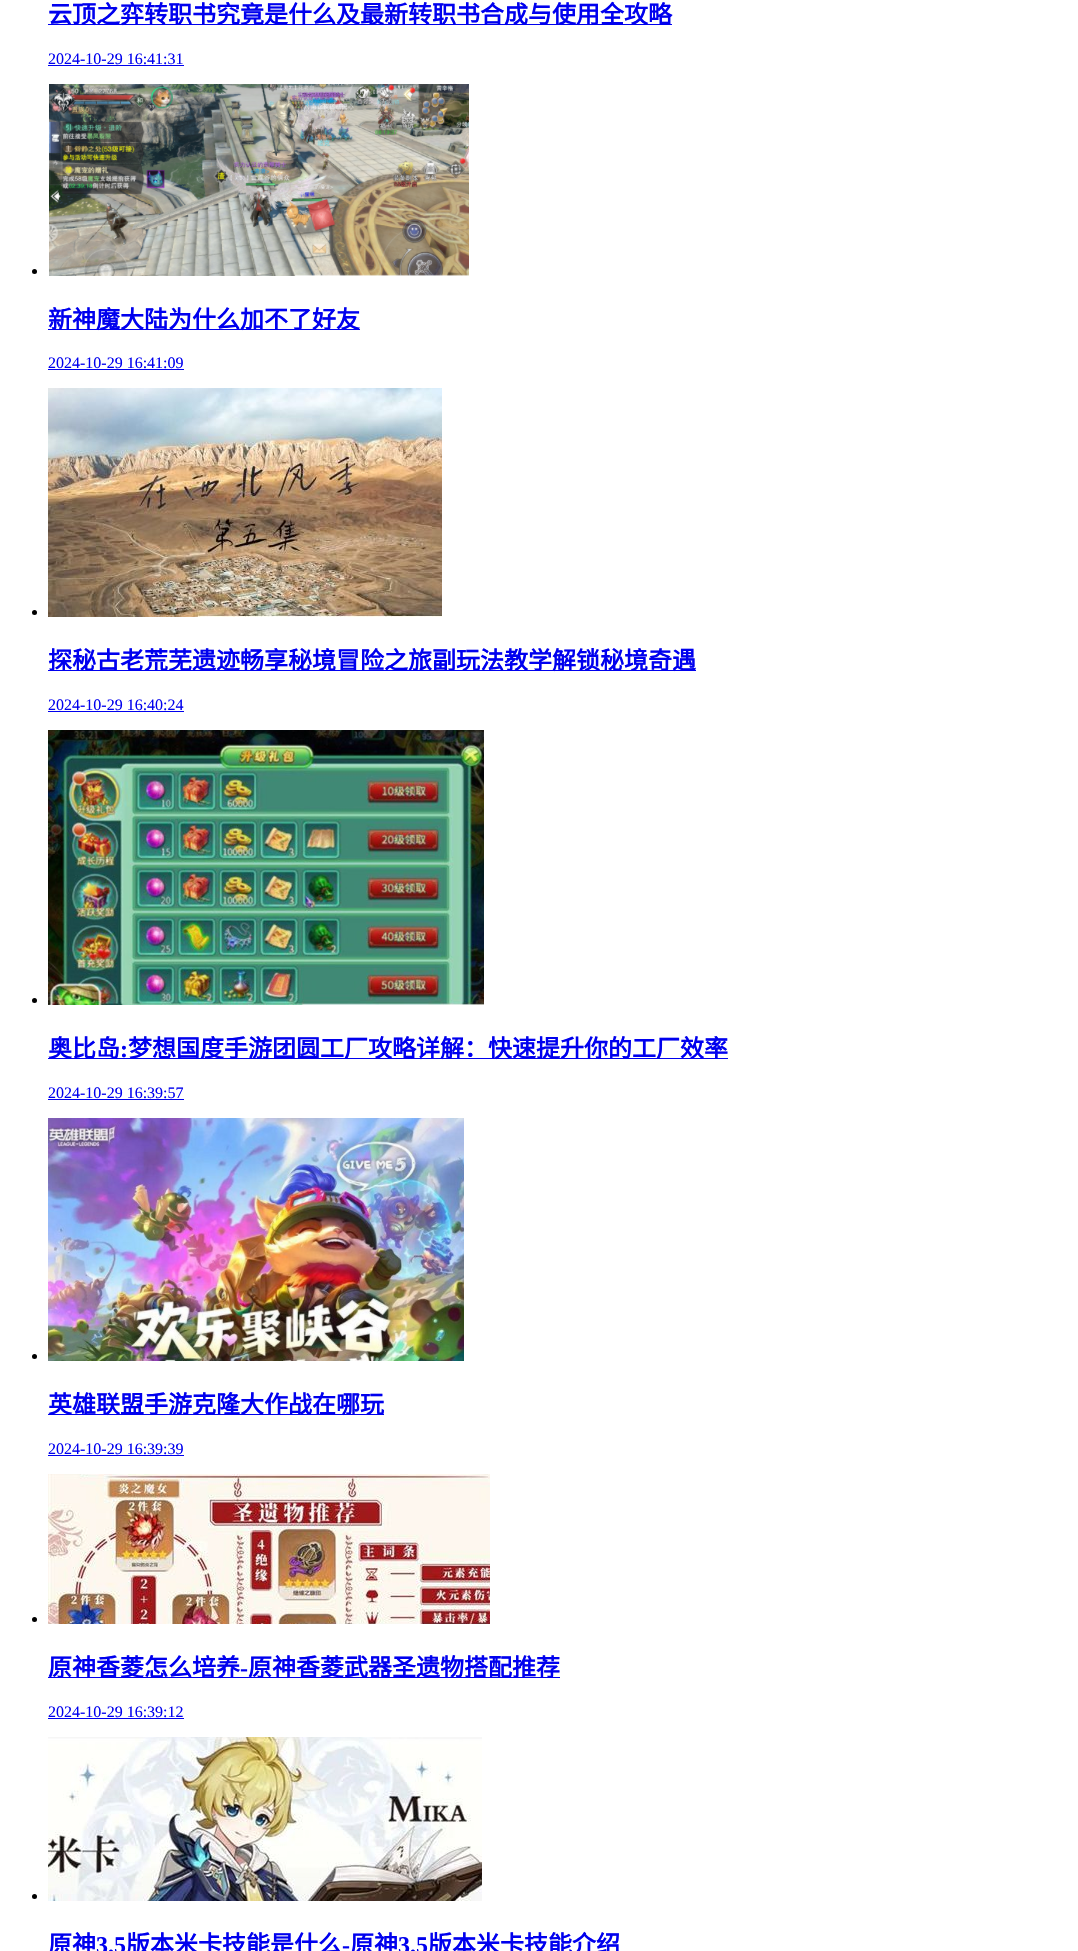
#include "include/core/SkBlurTypes.h"
#include "include/core/SkCanvas.h"
#include "include/core/SkData.h"
#include "include/core/SkFont.h"
#include "include/core/SkFontMgr.h"
#include "include/core/SkImage.h"
#include "include/core/SkMaskFilter.h"
#include "include/core/SkPaint.h"
#include "include/core/SkPathBuilder.h"
#include "include/core/SkTextBlob.h"
#include "include/effects/SkDashPathEffect.h"
#include "include/effects/SkGradientShader.h"
#include "include/utils/SkParsePath.h"

extern sk_sp<SkFontMgr> fontMgr;

static SkFont font(const char* family, int weight, float size, bool italic = false) {
    SkFontStyle style(weight, SkFontStyle::kNormal_Width,
        italic ? SkFontStyle::kItalic_Slant : SkFontStyle::kUpright_Slant);
    SkFont result(fontMgr->matchFamilyStyle(family, style), size);
    result.setSubpixel(true);
    return result;
}

static void drawLabel(SkCanvas* canvas, const char* s, float x, float y, const SkFont& font, SkColor color) {
    SkPaint ink(SkColor4f::FromColor(color));
    ink.setAntiAlias(true);
    canvas->drawString(s, x, y, font, ink);
}

static void fillRect(SkCanvas* canvas, float x, float y, float w, float h, SkColor color) {
    SkPaint ink(SkColor4f::FromColor(color));
    ink.setAntiAlias(true);
    canvas->drawRect(SkRect::MakeXYWH(x, y, w, h), ink);
}

static void drawPhoto(SkCanvas* canvas, const char* path, float x, float y, float w, float h) {
    auto image = SkImages::DeferredFromEncodedData(SkData::MakeFromFileName(path));
    canvas->drawImageRect(image, SkRect::MakeXYWH(x, y, w, h), SkSamplingOptions());
}

void draw(SkCanvas* canvas) {
    SkPaint paint;
    paint.setAntiAlias(true);
    canvas->clear(0xFFFFFFFF);
    fillRect(canvas, 48, 24, 624, 1, 0xFF0000EE);
    SkFont font1 = font("Noto Sans CJK SC", 700, 24);
    drawLabel(canvas, "云顶之弈转职书究竟是什么及最新转职书合成与使用全攻略", 48, 23, font1, 0xFF0000EE);
    SkFont font2 = font("Liberation Serif", 400, 16);
    drawLabel(canvas, "2024-10-29 16:41:31", 48, 64, font2, 0xFF0000EE);
    fillRect(canvas, 48, 65, 136, 1, 0xFF0000EE);
    paint.setColor(0xFF000000);
    canvas->drawCircle(34.5f, 271.5f, 2.5f, paint);
    drawPhoto(canvas, "assets/img1.png", 49, 84, 420, 192);
    fillRect(canvas, 48, 329, 312, 1, 0xFF0000EE);
    drawLabel(canvas, "新神魔大陆为什么加不了好友", 48, 328, font1, 0xFF0000EE);
    drawLabel(canvas, "2024-10-29 16:41:09", 48, 368, font2, 0xFF0000EE);
    fillRect(canvas, 48, 369, 136, 1, 0xFF0000EE);
    canvas->drawCircle(34.5f, 612.5f, 2.5f, paint);
    drawPhoto(canvas, "assets/img2.png", 48, 388, 394, 229);
    fillRect(canvas, 48, 670, 648, 1, 0xFF0000EE);
    drawLabel(canvas, "探秘古老荒芜遗迹畅享秘境冒险之旅副玩法教学解锁秘境奇遇", 48, 669, font1, 0xFF0000EE);
    drawLabel(canvas, "2024-10-29 16:40:24", 48, 710, font2, 0xFF0000EE);
    fillRect(canvas, 48, 711, 136, 1, 0xFF0000EE);
    canvas->drawCircle(34.5f, 1000.5f, 2.5f, paint);
    drawPhoto(canvas, "assets/img3.png", 48, 730, 436, 275);
    fillRect(canvas, 48, 1058, 680, 1, 0xFF0000EE);
    drawLabel(canvas, "奥比岛", 48, 1057, font1, 0xFF0000EE);
    SkFont font3 = font("Liberation Serif", 700, 24);
    drawLabel(canvas, ":", 120, 1057, font3, 0xFF0000EE);
    drawLabel(canvas, "梦想国度手游团圆工厂攻略详解：快速提升你的工厂效率", 128, 1057, font1, 0xFF0000EE);
    drawLabel(canvas, "2024-10-29 16:39:57", 48, 1098, font2, 0xFF0000EE);
    fillRect(canvas, 48, 1099, 136, 1, 0xFF0000EE);
    canvas->drawCircle(34.5f, 1356.5f, 2.5f, paint);
    drawPhoto(canvas, "assets/img4.png", 48, 1118, 416, 243);
    fillRect(canvas, 48, 1414, 336, 1, 0xFF0000EE);
    drawLabel(canvas, "英雄联盟手游克隆大作战在哪玩", 48, 1413, font1, 0xFF0000EE);
    drawLabel(canvas, "2024-10-29 16:39:39", 48, 1454, font2, 0xFF0000EE);
    fillRect(canvas, 48, 1455, 136, 1, 0xFF0000EE);
    canvas->drawCircle(34.5f, 1619.5f, 2.5f, paint);
    drawPhoto(canvas, "assets/img5.png", 48, 1474, 442, 150);
    fillRect(canvas, 48, 1677, 512, 1, 0xFF0000EE);
    drawLabel(canvas, "原神香菱怎么培养", 48, 1676, font1, 0xFF0000EE);
    drawLabel(canvas, "-", 240, 1676, font3, 0xFF0000EE);
    drawLabel(canvas, "原神香菱武器圣遗物搭配推荐", 248, 1676, font1, 0xFF0000EE);
    drawLabel(canvas, "2024-10-29 16:39:12", 48, 1717, font2, 0xFF0000EE);
    fillRect(canvas, 48, 1718, 136, 1, 0xFF0000EE);
    canvas->drawCircle(34.5f, 1896.5f, 2.5f, paint);
    drawPhoto(canvas, "assets/img6.png", 48, 1737, 434, 164);
    drawLabel(canvas, "原神", 48, 1953, font1, 0xFF0000EE);
    drawLabel(canvas, "3.5", 96, 1953, font3, 0xFF0000EE);
    drawLabel(canvas, "版本米卡技能是什么", 126, 1953, font1, 0xFF0000EE);
    drawLabel(canvas, "-", 342, 1953, font3, 0xFF0000EE);
    drawLabel(canvas, "原神", 350, 1953, font1, 0xFF0000EE);
    drawLabel(canvas, "3.5", 398, 1953, font3, 0xFF0000EE);
    drawLabel(canvas, "版本米卡技能介绍", 428, 1953, font1, 0xFF0000EE);
}
